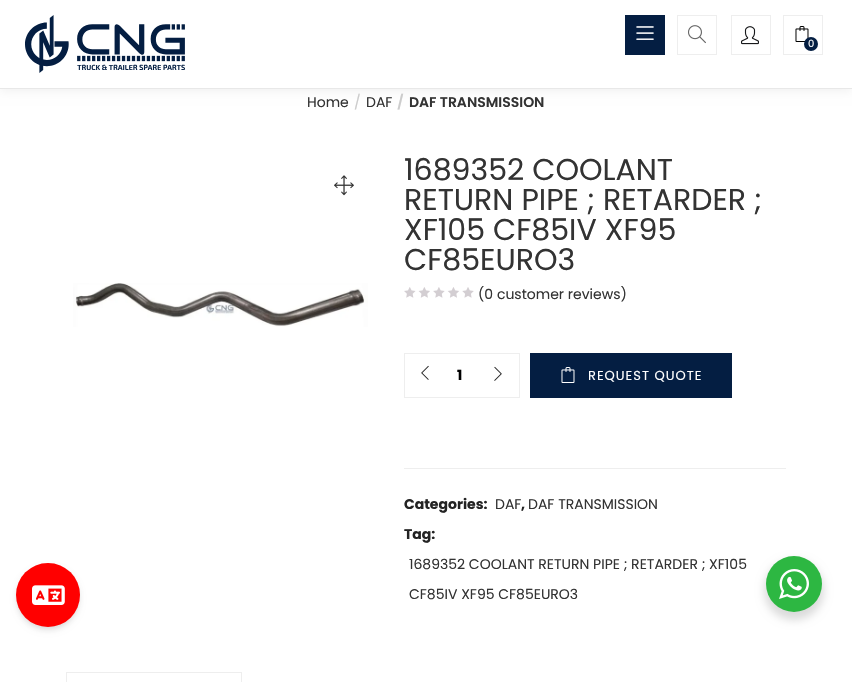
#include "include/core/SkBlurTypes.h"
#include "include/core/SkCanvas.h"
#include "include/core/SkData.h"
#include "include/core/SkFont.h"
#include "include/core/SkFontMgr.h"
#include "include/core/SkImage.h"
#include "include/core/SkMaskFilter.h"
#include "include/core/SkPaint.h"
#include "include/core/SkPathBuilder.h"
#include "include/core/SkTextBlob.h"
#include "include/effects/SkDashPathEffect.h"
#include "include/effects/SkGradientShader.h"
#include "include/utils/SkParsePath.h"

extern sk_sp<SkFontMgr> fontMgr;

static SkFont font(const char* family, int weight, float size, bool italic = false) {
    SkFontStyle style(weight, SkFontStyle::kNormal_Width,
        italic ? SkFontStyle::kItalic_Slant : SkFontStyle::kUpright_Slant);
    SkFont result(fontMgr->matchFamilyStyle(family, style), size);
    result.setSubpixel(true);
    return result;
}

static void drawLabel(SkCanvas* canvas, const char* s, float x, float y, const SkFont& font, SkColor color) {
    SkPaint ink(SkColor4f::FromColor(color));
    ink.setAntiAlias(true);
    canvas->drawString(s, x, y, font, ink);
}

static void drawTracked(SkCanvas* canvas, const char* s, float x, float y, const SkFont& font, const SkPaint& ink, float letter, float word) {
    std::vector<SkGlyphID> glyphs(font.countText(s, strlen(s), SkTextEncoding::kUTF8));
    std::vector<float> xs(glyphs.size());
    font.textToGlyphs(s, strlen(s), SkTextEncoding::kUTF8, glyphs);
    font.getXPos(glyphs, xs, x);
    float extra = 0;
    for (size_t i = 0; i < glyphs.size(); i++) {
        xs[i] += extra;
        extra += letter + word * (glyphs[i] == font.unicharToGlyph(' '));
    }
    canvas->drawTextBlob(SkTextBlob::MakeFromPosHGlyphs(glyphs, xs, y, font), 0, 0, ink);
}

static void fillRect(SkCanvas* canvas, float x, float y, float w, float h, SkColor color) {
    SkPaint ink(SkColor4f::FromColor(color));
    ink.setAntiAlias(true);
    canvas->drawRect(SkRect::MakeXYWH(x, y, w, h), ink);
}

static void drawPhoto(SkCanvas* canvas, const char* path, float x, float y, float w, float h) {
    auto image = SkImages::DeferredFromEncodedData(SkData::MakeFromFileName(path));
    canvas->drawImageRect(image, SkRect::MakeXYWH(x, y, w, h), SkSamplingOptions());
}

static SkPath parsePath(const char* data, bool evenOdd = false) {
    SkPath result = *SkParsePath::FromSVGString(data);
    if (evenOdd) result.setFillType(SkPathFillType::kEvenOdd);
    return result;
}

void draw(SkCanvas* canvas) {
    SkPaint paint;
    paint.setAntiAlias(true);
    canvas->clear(0xFFFFFFFF);
    paint.setColor(0x0F000000);
    paint.setMaskFilter(SkMaskFilter::MakeBlur(kNormal_SkBlurStyle, 5));
    canvas->drawRect(SkRect::MakeXYWH(0, 2, 852, 89), paint);
    paint.setMaskFilter(nullptr);
    fillRect(canvas, 0, 0, 852, 88, 0xFFFFFFFF);
    fillRect(canvas, 0, 88, 852, 1, 0xFFE8E8E8);
    drawPhoto(canvas, "assets/img1.png", 25, 15, 160, 58);
    fillRect(canvas, 625, 15, 40, 40, 0xFF041E42);
    drawPhoto(canvas, "assets/img2.png", 636, 26, 18, 14);
    paint.setStroke(true);
    paint.setStrokeWidth(1);
    paint.setColor(0xFFEEEEEE);
    canvas->drawRect(SkRect::MakeXYWH(677.5f, 15.5f, 39, 39), paint);
    drawPhoto(canvas, "assets/img3.png", 688, 25, 18, 19);
    canvas->drawRect(SkRect::MakeXYWH(731.5f, 15.5f, 39, 39), paint);
    drawPhoto(canvas, "assets/img4.png", 741, 26, 18, 19);
    canvas->drawRect(SkRect::MakeXYWH(783.5f, 15.5f, 39, 39), paint);
    drawPhoto(canvas, "assets/img5.png", 795, 26, 14, 16);
    paint.setStroke(false);
    paint.setColor(0xFF041E42);
    canvas->drawCircle(811, 44, 7, paint);
    SkFont font1 = font("Poppins", 400, 10);
    drawLabel(canvas, "0", 808, 47, font1, 0xFFFFFFFF);
    SkFont font2 = font("Poppins", 400, 14);
    drawLabel(canvas, "Home", 307, 107, font2, 0xFF333333);
    drawLabel(canvas, "/", 354, 107, font2, 0xFFCCCCCC);
    drawLabel(canvas, "DAF", 366, 107, font2, 0xFF333333);
    SkFont font3 = font("Poppins", 600, 14);
    drawLabel(canvas, "/", 397, 107, font3, 0xFFCCCCCC);
    drawLabel(canvas, "DAF TRANSMISSION", 409, 107, font3, 0xFF333333);
    drawPhoto(canvas, "assets/img6.png", 334, 175, 20, 21);
    drawPhoto(canvas, "assets/img7.png", 73, 283, 295, 44);
    SkFont font4 = font("Poppins", 400, 30);
    drawLabel(canvas, "1689352 COOLANT", 404, 180, font4, 0xFF333333);
    drawLabel(canvas, "RETURN PIPE ; RETARDER ;", 404, 210, font4, 0xFF333333);
    drawLabel(canvas, "XF105 CF85IV XF95", 404, 240, font4, 0xFF333333);
    drawLabel(canvas, "CF85EURO3", 404, 270, font4, 0xFF333333);
    drawPhoto(canvas, "assets/img8.png", 404, 287, 70, 11);
    drawLabel(canvas, "(0 customer reviews)", 478, 299, font2, 0xFF333333);
    paint.setStroke(true);
    paint.setColor(0xFFEEEEEE);
    canvas->drawRect(SkRect::MakeXYWH(404.5f, 353.5f, 115, 44), paint);
    drawPhoto(canvas, "assets/img9.png", 421, 365, 8, 15);
    SkFont font5 = font("Poppins", 700, 14);
    drawLabel(canvas, "1", 457, 380, font5, 0xFF000000);
    drawPhoto(canvas, "assets/img10.png", 494, 366, 8, 15);
    fillRect(canvas, 530, 353, 202, 45, 0xFF041E42);
    drawPhoto(canvas, "assets/img11.png", 561, 367, 14, 16);
    SkFont font6 = font("Poppins", 400, 13);
    paint.setStroke(false);
    paint.setColor(0xFFFFFFFF);
    drawTracked(canvas, "REQUEST QUOTE", 588, 380, font6, paint, 1, 0);
    fillRect(canvas, 404, 468, 382, 1, 0xFFEEEEEE);
    drawLabel(canvas, "Categories:", 404, 509, font5, 0xFF232323);
    drawLabel(canvas, "DAF", 495, 509, font2, 0xFF333333);
    drawLabel(canvas, ",", 521, 509, font5, 0xFF232323);
    drawLabel(canvas, "DAF TRANSMISSION", 528, 509, font2, 0xFF333333);
    drawLabel(canvas, "Tag:", 404, 539, font5, 0xFF232323);
    drawLabel(canvas, "1689352 COOLANT RETURN PIPE ; RETARDER ; XF105", 409, 569, font2, 0xFF333333);
    drawLabel(canvas, "CF85IV XF95 CF85EURO3", 409, 599, font2, 0xFF333333);
    fillRect(canvas, 66, 672, 176, 1, 0xFFEEEEEE);
    paint.setColor(0xFFEEEEEE);
    canvas->drawPath(parsePath("M242 672V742L241 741V673Z"), paint);
    canvas->drawPath(parsePath("M66 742V672L67 673V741Z"), paint);
    paint.setColor(0x0F000000);
    paint.setMaskFilter(SkMaskFilter::MakeBlur(kNormal_SkBlurStyle, 2));
    canvas->drawRoundRect(SkRect::MakeXYWH(17, 566, 62, 62), 31, 31, paint);
    paint.setMaskFilter(nullptr);
    paint.setColor(0x1A000000);
    paint.setMaskFilter(SkMaskFilter::MakeBlur(kNormal_SkBlurStyle, 3));
    canvas->drawRoundRect(SkRect::MakeXYWH(17, 568, 62, 62), 31, 31, paint);
    paint.setMaskFilter(nullptr);
    paint.setColor(0xFFFF0000);
    canvas->drawCircle(48, 595, 32, paint);
    drawPhoto(canvas, "assets/img12.png", 32, 585, 33, 20);
    paint.setColor(0x24000000);
    paint.setMaskFilter(SkMaskFilter::MakeBlur(kNormal_SkBlurStyle, 4));
    canvas->drawRoundRect(SkRect::MakeXYWH(764, 560, 60, 60), 30, 30, paint);
    paint.setMaskFilter(nullptr);
    paint.setColor(0xFF2DB742);
    canvas->drawCircle(794, 584, 28, paint);
    drawPhoto(canvas, "assets/img13.png", 779, 569, 30, 30);
}
